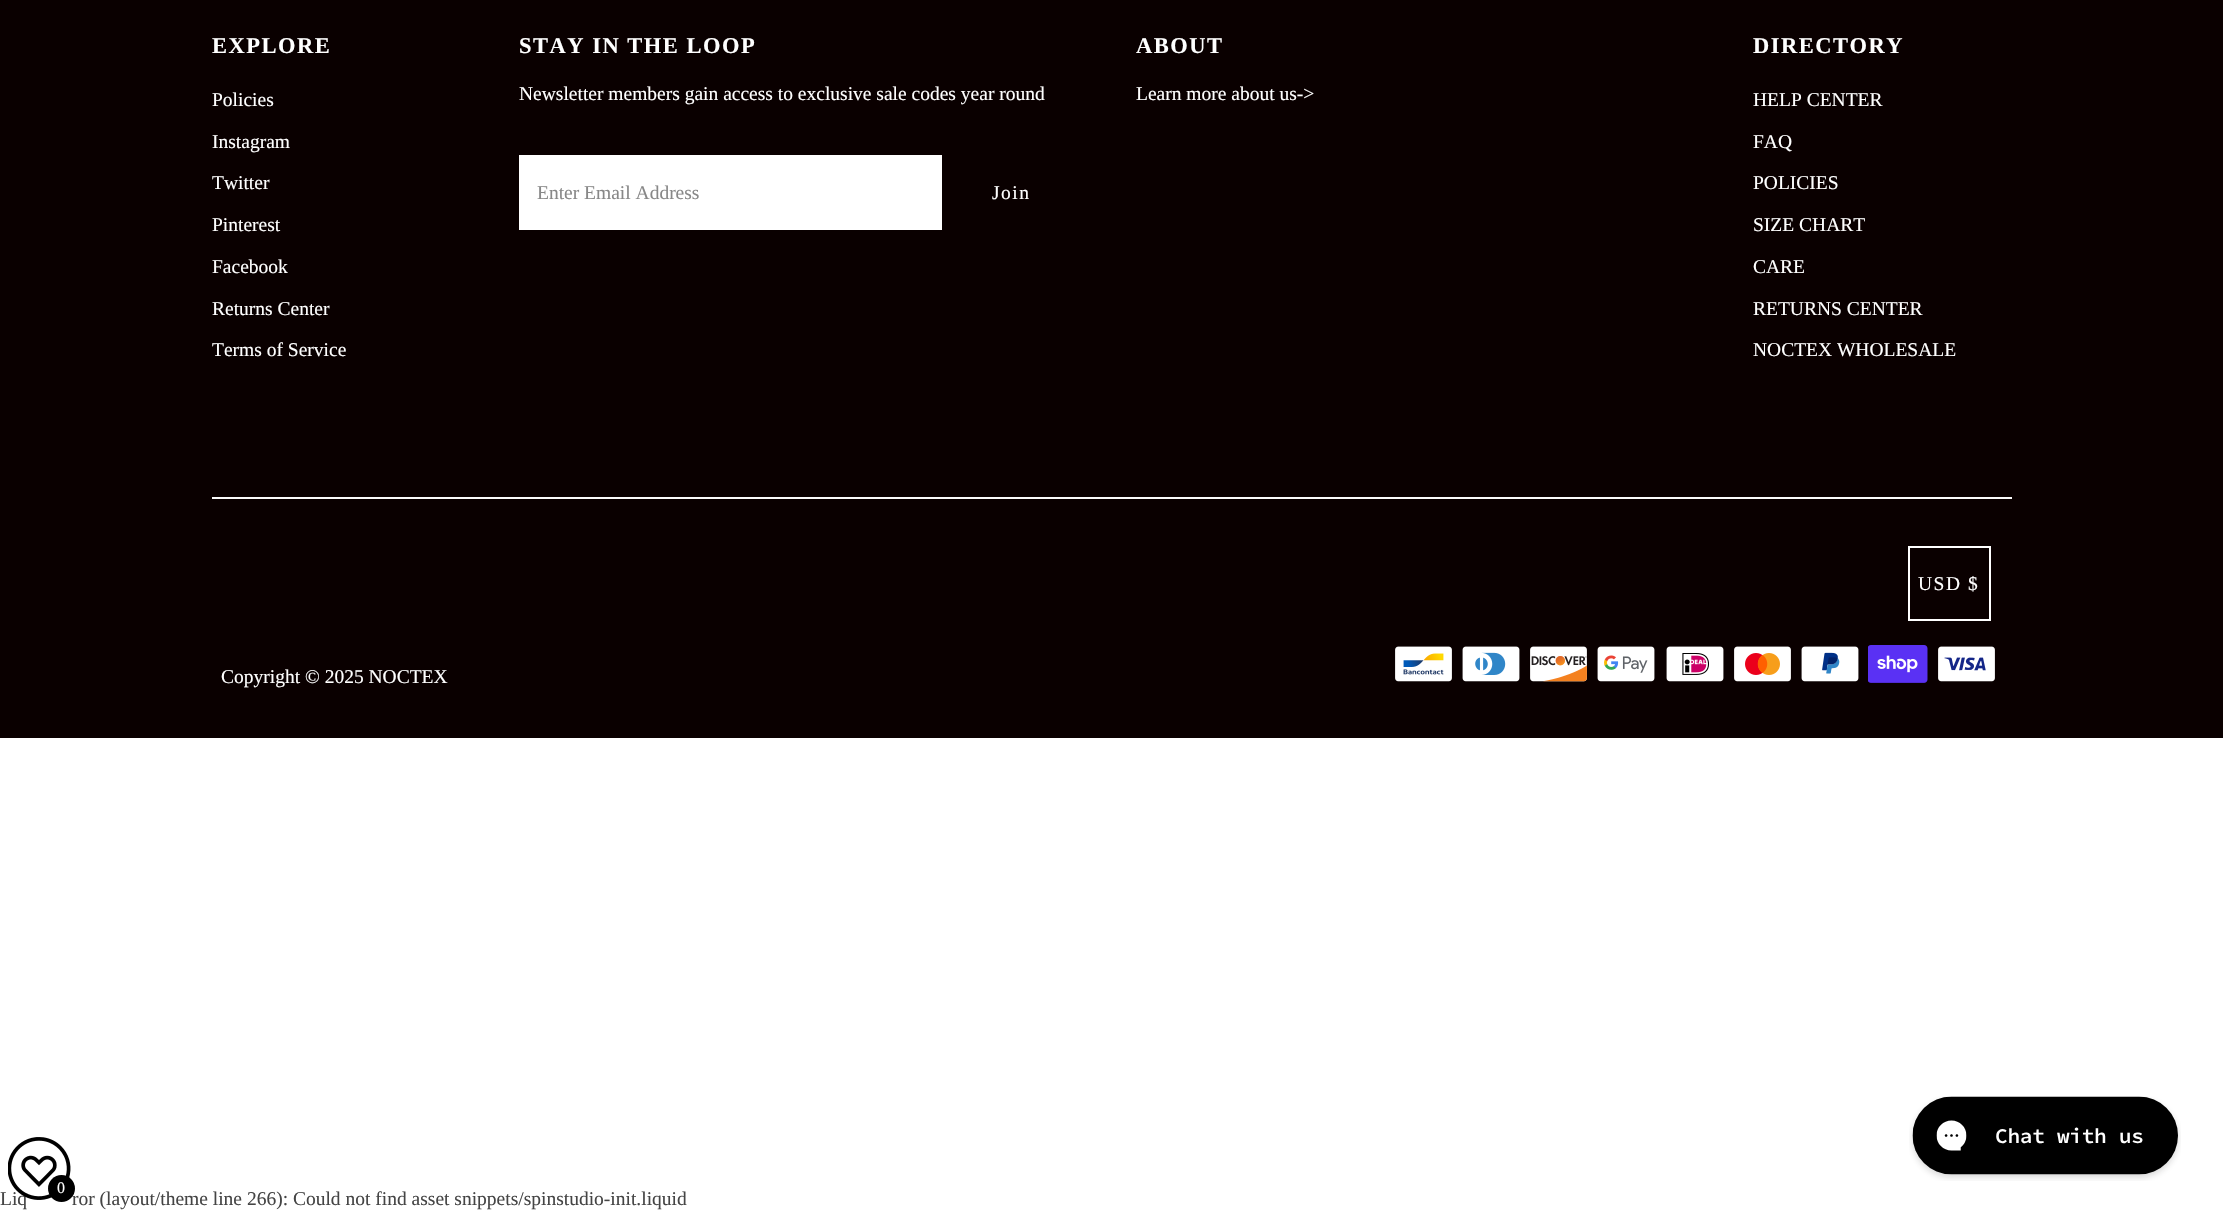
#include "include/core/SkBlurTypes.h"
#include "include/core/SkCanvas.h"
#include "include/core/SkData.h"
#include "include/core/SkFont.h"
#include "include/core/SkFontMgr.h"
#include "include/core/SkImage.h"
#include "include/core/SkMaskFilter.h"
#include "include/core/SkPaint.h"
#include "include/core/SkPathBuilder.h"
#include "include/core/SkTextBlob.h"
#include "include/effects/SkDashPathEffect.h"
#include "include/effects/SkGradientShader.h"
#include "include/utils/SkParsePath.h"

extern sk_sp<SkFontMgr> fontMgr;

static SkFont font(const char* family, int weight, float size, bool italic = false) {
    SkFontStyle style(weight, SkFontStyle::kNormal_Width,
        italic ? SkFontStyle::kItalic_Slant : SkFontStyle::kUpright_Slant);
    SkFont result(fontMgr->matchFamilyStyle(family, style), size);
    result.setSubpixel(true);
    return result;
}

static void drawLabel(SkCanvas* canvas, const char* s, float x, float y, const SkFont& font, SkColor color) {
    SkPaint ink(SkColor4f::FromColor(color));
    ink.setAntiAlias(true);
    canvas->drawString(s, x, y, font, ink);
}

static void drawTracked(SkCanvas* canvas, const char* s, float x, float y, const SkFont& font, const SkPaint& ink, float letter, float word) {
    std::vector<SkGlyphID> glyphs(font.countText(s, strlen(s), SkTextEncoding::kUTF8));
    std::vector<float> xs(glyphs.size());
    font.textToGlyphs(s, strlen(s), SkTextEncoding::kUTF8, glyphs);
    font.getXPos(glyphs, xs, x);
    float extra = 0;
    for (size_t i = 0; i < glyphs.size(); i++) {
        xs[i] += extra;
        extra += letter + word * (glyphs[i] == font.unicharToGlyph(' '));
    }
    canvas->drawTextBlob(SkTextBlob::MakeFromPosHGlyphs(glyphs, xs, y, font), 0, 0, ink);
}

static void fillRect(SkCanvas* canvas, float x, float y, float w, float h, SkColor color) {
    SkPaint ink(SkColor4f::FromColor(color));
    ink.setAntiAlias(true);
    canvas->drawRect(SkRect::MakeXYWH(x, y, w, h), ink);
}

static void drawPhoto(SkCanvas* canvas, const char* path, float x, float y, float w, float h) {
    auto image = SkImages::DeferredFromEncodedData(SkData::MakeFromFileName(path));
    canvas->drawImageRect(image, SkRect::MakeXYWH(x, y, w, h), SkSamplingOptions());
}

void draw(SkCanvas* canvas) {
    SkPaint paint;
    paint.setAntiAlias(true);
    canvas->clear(0xFFFFFFFF);
    fillRect(canvas, 0, 0, 2223, 738, 0xFF0A0000);
    SkFont font1 = font("Liberation Serif", 700, 22.5f);
    paint.setColor(0xFFFFFFFF);
    drawTracked(canvas, "EXPLORE", 212, 53, font1, paint, 1.5f, 0);
    SkFont font2 = font("Liberation Serif", 400, 19.5f);
    drawLabel(canvas, "Policies", 212, 106, font2, 0xFFFFFFFF);
    drawLabel(canvas, "Instagram", 212, 148, font2, 0xFFFFFFFF);
    drawLabel(canvas, "Twitter", 212, 189, font2, 0xFFFFFFFF);
    drawLabel(canvas, "Pinterest", 212, 231, font2, 0xFFFFFFFF);
    drawLabel(canvas, "Facebook", 212, 273, font2, 0xFFFFFFFF);
    drawLabel(canvas, "Returns Center", 212, 315, font2, 0xFFFFFFFF);
    drawLabel(canvas, "Terms of Service", 212, 356, font2, 0xFFFFFFFF);
    drawTracked(canvas, "STAY IN THE LOOP", 519, 53, font1, paint, 1.5f, 0);
    drawLabel(canvas, "Newsletter members gain access to exclusive sale codes year round", 519, 100, font2, 0xFFFFFFFF);
    fillRect(canvas, 519, 155, 423, 75, 0xFFFFFFFF);
    drawLabel(canvas, "Enter Email Address", 537, 199, font2, 0xFF888888);
    drawTracked(canvas, "Join", 992, 199, font2, paint, 1.5f, 0);
    drawTracked(canvas, "ABOUT", 1136, 53, font1, paint, 1.5f, 0);
    drawLabel(canvas, "Learn more about us->", 1136, 100, font2, 0xFFFFFFFF);
    drawTracked(canvas, "DIRECTORY", 1753, 53, font1, paint, 1.5f, 0);
    drawLabel(canvas, "HELP CENTER", 1753, 106, font2, 0xFFFFFFFF);
    drawLabel(canvas, "FAQ", 1753, 148, font2, 0xFFFFFFFF);
    drawLabel(canvas, "POLICIES", 1753, 189, font2, 0xFFFFFFFF);
    drawLabel(canvas, "SIZE CHART", 1753, 231, font2, 0xFFFFFFFF);
    drawLabel(canvas, "CARE", 1753, 273, font2, 0xFFFFFFFF);
    drawLabel(canvas, "RETURNS CENTER", 1753, 315, font2, 0xFFFFFFFF);
    drawLabel(canvas, "NOCTEX WHOLESALE", 1753, 356, font2, 0xFFFFFFFF);
    fillRect(canvas, 212, 497, 1800, 2, 0xFFFAFAFA);
    paint.setStroke(true);
    paint.setStrokeWidth(2);
    canvas->drawRect(SkRect::MakeXYWH(1909, 547, 81, 73), paint);
    paint.setStroke(false);
    drawTracked(canvas, "USD $", 1918, 590, font2, paint, 1.5f, 0);
    drawPhoto(canvas, "assets/img1.png", 1395, 646, 57, 36);
    drawPhoto(canvas, "assets/img2.png", 1462, 646, 58, 36);
    drawPhoto(canvas, "assets/img3.png", 1530, 646, 57, 36);
    drawPhoto(canvas, "assets/img4.png", 1597, 646, 58, 36);
    drawPhoto(canvas, "assets/img5.png", 1666, 646, 58, 36);
    drawPhoto(canvas, "assets/img6.png", 1734, 646, 57, 36);
    drawPhoto(canvas, "assets/img7.png", 1801, 646, 58, 36);
    drawPhoto(canvas, "assets/img8.png", 1868, 645, 60, 38);
    drawPhoto(canvas, "assets/img9.png", 1938, 646, 57, 36);
    drawLabel(canvas, "Copyright © 2025 NOCTEX", 221, 683, font2, 0xFFFFFFFF);
    drawPhoto(canvas, "assets/img10.png", 1909, 1096, 272, 85);
    drawLabel(canvas, "Liq", 0, 1205, font2, 0xFF454545);
    drawPhoto(canvas, "assets/img11.png", 8, 1137, 63, 63);
    drawLabel(canvas, "ror (layout/theme line 266): Could not find asset snippets/spinstudio-init.liquid", 72, 1205, font2, 0xFF454545);
    paint.setColor(0xFF000000);
    canvas->drawCircle(61.5f, 1188.5f, 13.5f, paint);
    SkFont font3 = font("Liberation Serif", 400, 16);
    drawLabel(canvas, "0", 57, 1193, font3, 0xFFFFFFFF);
}
